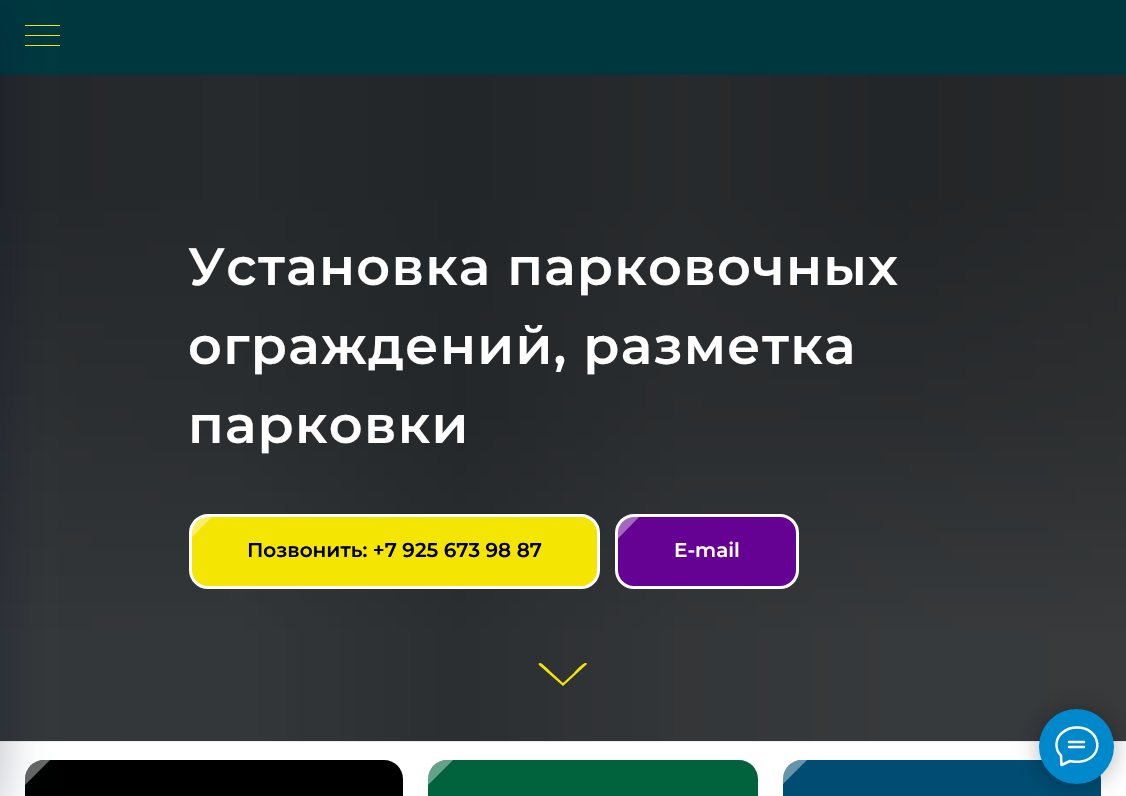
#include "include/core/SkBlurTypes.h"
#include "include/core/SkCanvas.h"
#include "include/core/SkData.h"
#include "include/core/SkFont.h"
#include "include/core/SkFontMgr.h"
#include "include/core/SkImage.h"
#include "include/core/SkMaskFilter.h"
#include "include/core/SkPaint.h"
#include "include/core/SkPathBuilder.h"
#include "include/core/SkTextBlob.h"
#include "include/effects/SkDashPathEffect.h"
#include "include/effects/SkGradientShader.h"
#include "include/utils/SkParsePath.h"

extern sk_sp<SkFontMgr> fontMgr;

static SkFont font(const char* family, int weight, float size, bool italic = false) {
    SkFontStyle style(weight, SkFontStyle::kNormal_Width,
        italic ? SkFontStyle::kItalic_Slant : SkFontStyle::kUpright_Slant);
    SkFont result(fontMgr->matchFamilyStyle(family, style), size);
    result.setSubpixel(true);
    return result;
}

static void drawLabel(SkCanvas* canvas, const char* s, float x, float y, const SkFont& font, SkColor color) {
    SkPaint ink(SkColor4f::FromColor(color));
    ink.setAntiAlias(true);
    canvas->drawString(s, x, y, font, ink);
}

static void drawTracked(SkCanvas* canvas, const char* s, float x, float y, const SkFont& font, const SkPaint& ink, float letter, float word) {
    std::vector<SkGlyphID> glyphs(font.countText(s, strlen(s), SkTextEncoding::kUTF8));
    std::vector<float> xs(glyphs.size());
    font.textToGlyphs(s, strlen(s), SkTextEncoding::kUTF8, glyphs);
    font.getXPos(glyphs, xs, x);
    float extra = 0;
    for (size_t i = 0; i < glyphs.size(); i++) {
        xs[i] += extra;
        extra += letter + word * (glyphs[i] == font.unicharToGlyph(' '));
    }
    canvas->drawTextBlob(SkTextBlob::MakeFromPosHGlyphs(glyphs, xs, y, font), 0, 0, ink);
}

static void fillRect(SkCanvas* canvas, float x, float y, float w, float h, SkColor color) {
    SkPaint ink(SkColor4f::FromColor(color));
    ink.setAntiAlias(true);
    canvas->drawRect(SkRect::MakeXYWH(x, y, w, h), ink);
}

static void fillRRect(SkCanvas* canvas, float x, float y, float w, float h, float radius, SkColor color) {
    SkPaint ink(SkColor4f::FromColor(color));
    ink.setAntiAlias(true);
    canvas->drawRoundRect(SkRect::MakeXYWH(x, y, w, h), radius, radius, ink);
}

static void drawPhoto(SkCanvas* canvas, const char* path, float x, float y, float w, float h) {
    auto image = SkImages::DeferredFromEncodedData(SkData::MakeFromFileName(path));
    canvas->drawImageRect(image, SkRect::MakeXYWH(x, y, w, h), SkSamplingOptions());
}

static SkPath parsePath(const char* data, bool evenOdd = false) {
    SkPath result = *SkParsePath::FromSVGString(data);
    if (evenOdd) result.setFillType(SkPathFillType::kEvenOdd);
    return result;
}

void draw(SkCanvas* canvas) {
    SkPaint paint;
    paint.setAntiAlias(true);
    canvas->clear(0xFFFFFFFF);
    fillRect(canvas, 0, 0, 1126, 75, 0xFF00373F);
    fillRect(canvas, 25, 25, 35, 1, 0xFFF5E503);
    fillRect(canvas, 25, 35, 35, 1, 0xFFF5E503);
    fillRect(canvas, 25, 45, 35, 1, 0xFFF5E503);
    drawPhoto(canvas, "assets/img1.png", 0, 75, 1126, 667);
    fillRRect(canvas, 25, 760, 378, 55, 19, 0xFF000000);
    {
        const SkColor colors[] = {0x1AFFFFFF, 0x66FFFFFF};
        const float stops[] = {0, 1};
        const SkPoint ends[] = {{-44, 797}, {13, 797}};
        paint.setShader(SkGradientShader::MakeLinear(ends, colors, stops, 2, SkTileMode::kClamp));
        paint.setAlpha(255);
    }
    canvas->drawPath(parsePath("M44 760C33.5 760 25 768.5 25 779V785L50 760Z"), paint);
    paint.setShader(nullptr);
    paint.setColor(0x4D000B30);
    paint.setMaskFilter(SkMaskFilter::MakeBlur(kNormal_SkBlurStyle, 25));
    canvas->drawRect(SkRect::MakeXYWH(-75, 15, 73, 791), paint);
    paint.setMaskFilter(nullptr);
    SkFont font1 = font("Montserrat", 600, 52.5f);
    paint.setColor(0xFFFFFFFF);
    drawTracked(canvas, "Установка парковочных", 188, 285, font1, paint, 1.25f, 0);
    drawTracked(canvas, "ограждений, разметка", 188, 364, font1, paint, 1.25f, 0);
    drawTracked(canvas, "парковки", 188, 443, font1, paint, 1.25f, 0);
    paint.setColor(0xFFF5E503);
    canvas->drawRoundRect(SkRect::MakeXYWH(190.5f, 515.5f, 408, 72), 17.5f, 17.5f, paint);
    paint.setStroke(true);
    paint.setStrokeWidth(3);
    paint.setColor(0xFFFFFFFF);
    canvas->drawRoundRect(SkRect::MakeXYWH(190.5f, 515.5f, 408, 72), 17.5f, 17.5f, paint);
    paint.setStroke(false);
    {
        const SkColor colors[] = {0x1AFFFFFF, 0x66FFFFFF};
        const float stops[] = {0, 1};
        const SkPoint ends[] = {{122, 551}, {178, 551}};
        paint.setShader(SkGradientShader::MakeLinear(ends, colors, stops, 2, SkTileMode::kClamp));
        paint.setAlpha(255);
    }
    canvas->drawPath(parsePath("M207 516C198 516 191 523 191 532V538L213 516Z"), paint);
    SkFont font2 = font("Montserrat", 600, 20);
    drawLabel(canvas, "Позвонить: +7 925 673 98 87", 247, 557, font2, 0xFF000000);
    paint.setShader(nullptr);
    paint.setColor(0xFF650293);
    canvas->drawRoundRect(SkRect::MakeXYWH(616.5f, 515.5f, 181, 72), 17.5f, 17.5f, paint);
    paint.setStroke(true);
    paint.setColor(0xFFFFFFFF);
    canvas->drawRoundRect(SkRect::MakeXYWH(616.5f, 515.5f, 181, 72), 17.5f, 17.5f, paint);
    paint.setStroke(false);
    {
        const SkColor colors[] = {0x1AFFFFFF, 0x66FFFFFF};
        const float stops[] = {0, 1};
        const SkPoint ends[] = {{549, 551}, {606, 551}};
        paint.setShader(SkGradientShader::MakeLinear(ends, colors, stops, 2, SkTileMode::kClamp));
        paint.setAlpha(255);
    }
    canvas->drawPath(parsePath("M634 516C625 516 618 523 618 532V538.5L640 516Z"), paint);
    drawLabel(canvas, "E-mail", 674, 557, font2, 0xFFFFFFFF);
    paint.setShader(nullptr);
    paint.setColor(0xFFF5E503);
    canvas->drawPath(parsePath("M563 686L539 665C538 664 539 663 540 663C541 662 550 671 552 673L563 683L574 673C575 671 584 662 586 663C587 663 587 664 587 664Z"), paint);
    fillRRect(canvas, 428, 760, 330, 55, 19, 0xFF00633D);
    {
        const SkColor colors[] = {0x1AFFFFFF, 0x66FFFFFF};
        const float stops[] = {0, 1};
        const SkPoint ends[] = {{359, 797}, {415, 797}};
        paint.setShader(SkGradientShader::MakeLinear(ends, colors, stops, 2, SkTileMode::kClamp));
        paint.setAlpha(255);
    }
    canvas->drawPath(parsePath("M447 760C436.5 760 428 768.5 428 779V785L453 760Z"), paint);
    fillRRect(canvas, 783, 760, 318, 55, 19, 0xFF004C73);
    {
        const SkColor colors[] = {0x1AFFFFFF, 0x66FFFFFF};
        const float stops[] = {0, 1};
        const SkPoint ends[] = {{714, 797}, {770, 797}};
        paint.setShader(SkGradientShader::MakeLinear(ends, colors, stops, 2, SkTileMode::kClamp));
        paint.setAlpha(255);
    }
    canvas->drawPath(parsePath("M802 760C791.5 760 783 768.5 783 779V784L807 760Z"), paint);
    paint.setShader(nullptr);
    paint.setColor(0x4D000000);
    paint.setMaskFilter(SkMaskFilter::MakeBlur(kNormal_SkBlurStyle, 12.5f));
    canvas->drawRoundRect(SkRect::MakeXYWH(1039, 709, 75, 75), 37.5f, 37.5f, paint);
    paint.setMaskFilter(nullptr);
    paint.setColor(0xFF0088CC);
    canvas->drawCircle(1076.5f, 746.5f, 37.5f, paint);
    paint.setStroke(true);
    paint.setStrokeWidth(2.5f);
    paint.setStrokeCap(SkPaint::kRound_Cap);
    paint.setStrokeJoin(SkPaint::kRound_Join);
    paint.setColor(0xFFFFFFFF);
    canvas->drawPath(parsePath("M1069 742H1084M1069 747H1084M1061 755.5C1054.5 749 1055 738.5 1062.5 732.5C1066.5 729 1071.5 727.5 1077 727.5C1101 727.5 1105.5 757.5 1081 761.5C1077 762.5 1074 761.5 1070 761L1061.5 765Z"), paint);
}
